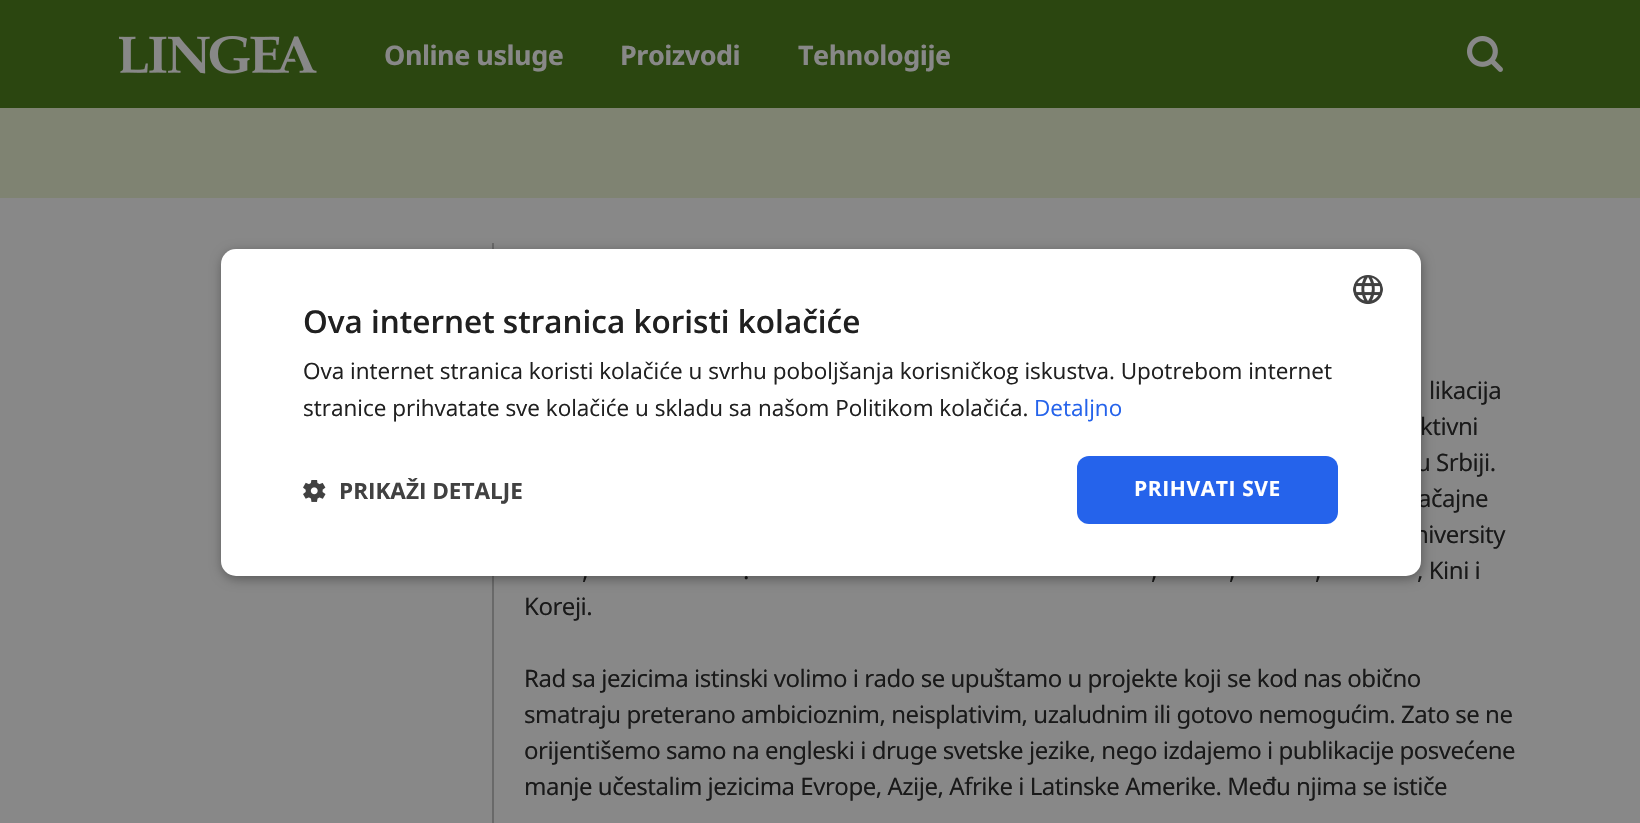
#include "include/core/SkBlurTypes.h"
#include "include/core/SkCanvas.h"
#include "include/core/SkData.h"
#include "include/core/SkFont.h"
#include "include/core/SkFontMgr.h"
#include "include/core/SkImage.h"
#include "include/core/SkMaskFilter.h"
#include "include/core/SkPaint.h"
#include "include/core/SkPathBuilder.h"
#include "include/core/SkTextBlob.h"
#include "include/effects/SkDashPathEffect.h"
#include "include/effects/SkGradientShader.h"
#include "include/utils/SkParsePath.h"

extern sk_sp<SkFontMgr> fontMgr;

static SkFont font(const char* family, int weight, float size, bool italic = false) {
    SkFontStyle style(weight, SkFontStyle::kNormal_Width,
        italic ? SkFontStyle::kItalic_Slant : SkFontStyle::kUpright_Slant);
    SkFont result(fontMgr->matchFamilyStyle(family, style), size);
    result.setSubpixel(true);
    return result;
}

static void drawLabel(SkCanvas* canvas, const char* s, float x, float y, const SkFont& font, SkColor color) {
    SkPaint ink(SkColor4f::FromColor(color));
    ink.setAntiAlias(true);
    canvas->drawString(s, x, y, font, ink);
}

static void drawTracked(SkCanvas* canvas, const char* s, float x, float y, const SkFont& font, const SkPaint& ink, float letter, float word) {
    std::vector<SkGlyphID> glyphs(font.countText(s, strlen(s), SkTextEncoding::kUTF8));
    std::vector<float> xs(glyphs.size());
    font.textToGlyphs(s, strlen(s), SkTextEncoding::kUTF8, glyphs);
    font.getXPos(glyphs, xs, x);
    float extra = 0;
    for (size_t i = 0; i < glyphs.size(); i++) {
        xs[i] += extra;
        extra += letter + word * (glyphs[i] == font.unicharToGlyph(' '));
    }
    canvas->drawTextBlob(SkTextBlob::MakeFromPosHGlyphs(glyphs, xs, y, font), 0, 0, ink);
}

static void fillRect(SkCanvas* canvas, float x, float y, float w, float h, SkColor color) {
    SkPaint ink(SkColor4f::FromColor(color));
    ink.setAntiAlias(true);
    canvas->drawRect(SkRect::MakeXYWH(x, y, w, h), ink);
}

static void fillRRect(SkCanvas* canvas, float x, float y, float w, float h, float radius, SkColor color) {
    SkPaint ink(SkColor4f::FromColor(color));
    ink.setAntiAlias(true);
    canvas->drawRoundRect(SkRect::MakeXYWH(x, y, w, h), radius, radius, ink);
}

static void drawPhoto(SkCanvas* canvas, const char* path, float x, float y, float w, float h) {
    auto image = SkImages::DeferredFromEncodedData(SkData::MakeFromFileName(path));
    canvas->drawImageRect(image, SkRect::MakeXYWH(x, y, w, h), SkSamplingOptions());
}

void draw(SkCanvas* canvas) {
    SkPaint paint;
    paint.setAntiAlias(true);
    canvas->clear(0xFF888888);
    fillRect(canvas, 0, 0, 1640, 108, 0xFF2B4610);
    drawPhoto(canvas, "assets/img1.png", 119, 36, 198, 38);
    SkFont font1 = font("Noto Sans", 700, 27);
    paint.setColor(0xFF888888);
    drawTracked(canvas, "Online usluge", 384, 65, font1, paint, -0.48f, 0);
    drawTracked(canvas, "Proizvodi", 620, 65, font1, paint, -0.48f, 0);
    drawTracked(canvas, "Tehnologije", 798, 65, font1, paint, -0.48f, 0);
    drawPhoto(canvas, "assets/img2.png", 1467, 36, 36, 36);
    fillRect(canvas, 0, 108, 1640, 90, 0xFF7F8372);
    fillRect(canvas, 492, 243, 2, 580, 0xFF696969);
    SkFont font2 = font("Noto Sans", 400, 24);
    paint.setColor(0xFF191919);
    drawTracked(canvas, "likacija", 1429, 399, font2, paint, -0.48f, 0);
    drawTracked(canvas, "ktivni", 1420, 435, font2, paint, -0.48f, 0);
    drawTracked(canvas, "u Srbiji.", 1416, 471, font2, paint, -0.48f, 0);
    drawTracked(canvas, "ačajne", 1418, 507, font2, paint, -0.48f, 0);
    drawTracked(canvas, "niversity", 1414, 543, font2, paint, -0.48f, 0);
    drawTracked(canvas, ",", 582, 579, font2, paint, -0.48f, 0);
    drawTracked(canvas, ".", 743, 579, font2, paint, -0.48f, 0);
    drawTracked(canvas, ",", 1151, 579, font2, paint, -0.48f, 0);
    drawTracked(canvas, ",", 1229, 579, font2, paint, -0.48f, 0);
    drawTracked(canvas, ",", 1315, 579, font2, paint, -0.48f, 0);
    drawTracked(canvas, ", Kini i", 1417, 579, font2, paint, -0.48f, 0);
    drawTracked(canvas, "Koreji.", 524, 615, font2, paint, -0.48f, 0);
    drawTracked(canvas, "Rad sa jezicima istinski volimo i rado se upuštamo u projekte koji se kod nas obično", 524, 687, font2, paint, -0.48f, 0);
    drawTracked(canvas, "smatraju preterano ambicioznim, neisplativim, uzaludnim ili gotovo nemogućim. Zato se ne", 524, 723, font2, paint, -0.48f, 0);
    drawTracked(canvas, "orijentišemo samo na engleski i druge svetske jezike, nego izdajemo i publikacije posvećene", 524, 759, font2, paint, -0.48f, 0);
    drawTracked(canvas, "manje učestalim jezicima Evrope, Azije, Afrike i Latinske Amerike. Među njima se ističe", 524, 795, font2, paint, -0.48f, 0);
    paint.setColor(0x59000000);
    paint.setMaskFilter(SkMaskFilter::MakeBlur(kNormal_SkBlurStyle, 6));
    canvas->drawRoundRect(SkRect::MakeXYWH(222, 252, 1200, 327), 15, 15, paint);
    paint.setMaskFilter(nullptr);
    fillRRect(canvas, 221, 249, 1200, 327, 15, 0xFFFFFFFF);
    drawPhoto(canvas, "assets/img3.png", 1353, 275, 30, 30);
    SkFont font3 = font("Open Sans", 600, 31.5f);
    drawLabel(canvas, "Ova internet stranica koristi kolačiće", 303, 333, font3, 0xFF202020);
    SkFont font4 = font("Open Sans", 400, 22.5f);
    drawLabel(canvas, "Ova internet stranica koristi kolačiće u svrhu poboljšanja korisničkog iskustva. Upotrebom internet", 303, 379, font4, 0xFF202020);
    drawLabel(canvas, "stranice prihvatate sve kolačiće u skladu sa našom Politikom kolačića.", 303, 416, font4, 0xFF202020);
    drawLabel(canvas, "Detaljno", 1034, 416, font4, 0xFF2563EB);
    drawPhoto(canvas, "assets/img4.png", 303, 480, 23, 22);
    SkFont font5 = font("Open Sans", 700, 22.5f);
    drawLabel(canvas, "PRIKAŽI DETALJE", 339, 499, font5, 0xFF414141);
    fillRRect(canvas, 1077, 456, 261, 68, 12, 0xFF2563EB);
    SkFont font6 = font("Open Sans", 700, 21);
    paint.setColor(0xFFFFFFFF);
    drawTracked(canvas, "PRIHVATI SVE", 1134, 496, font6, paint, 0.6f, 0);
}
